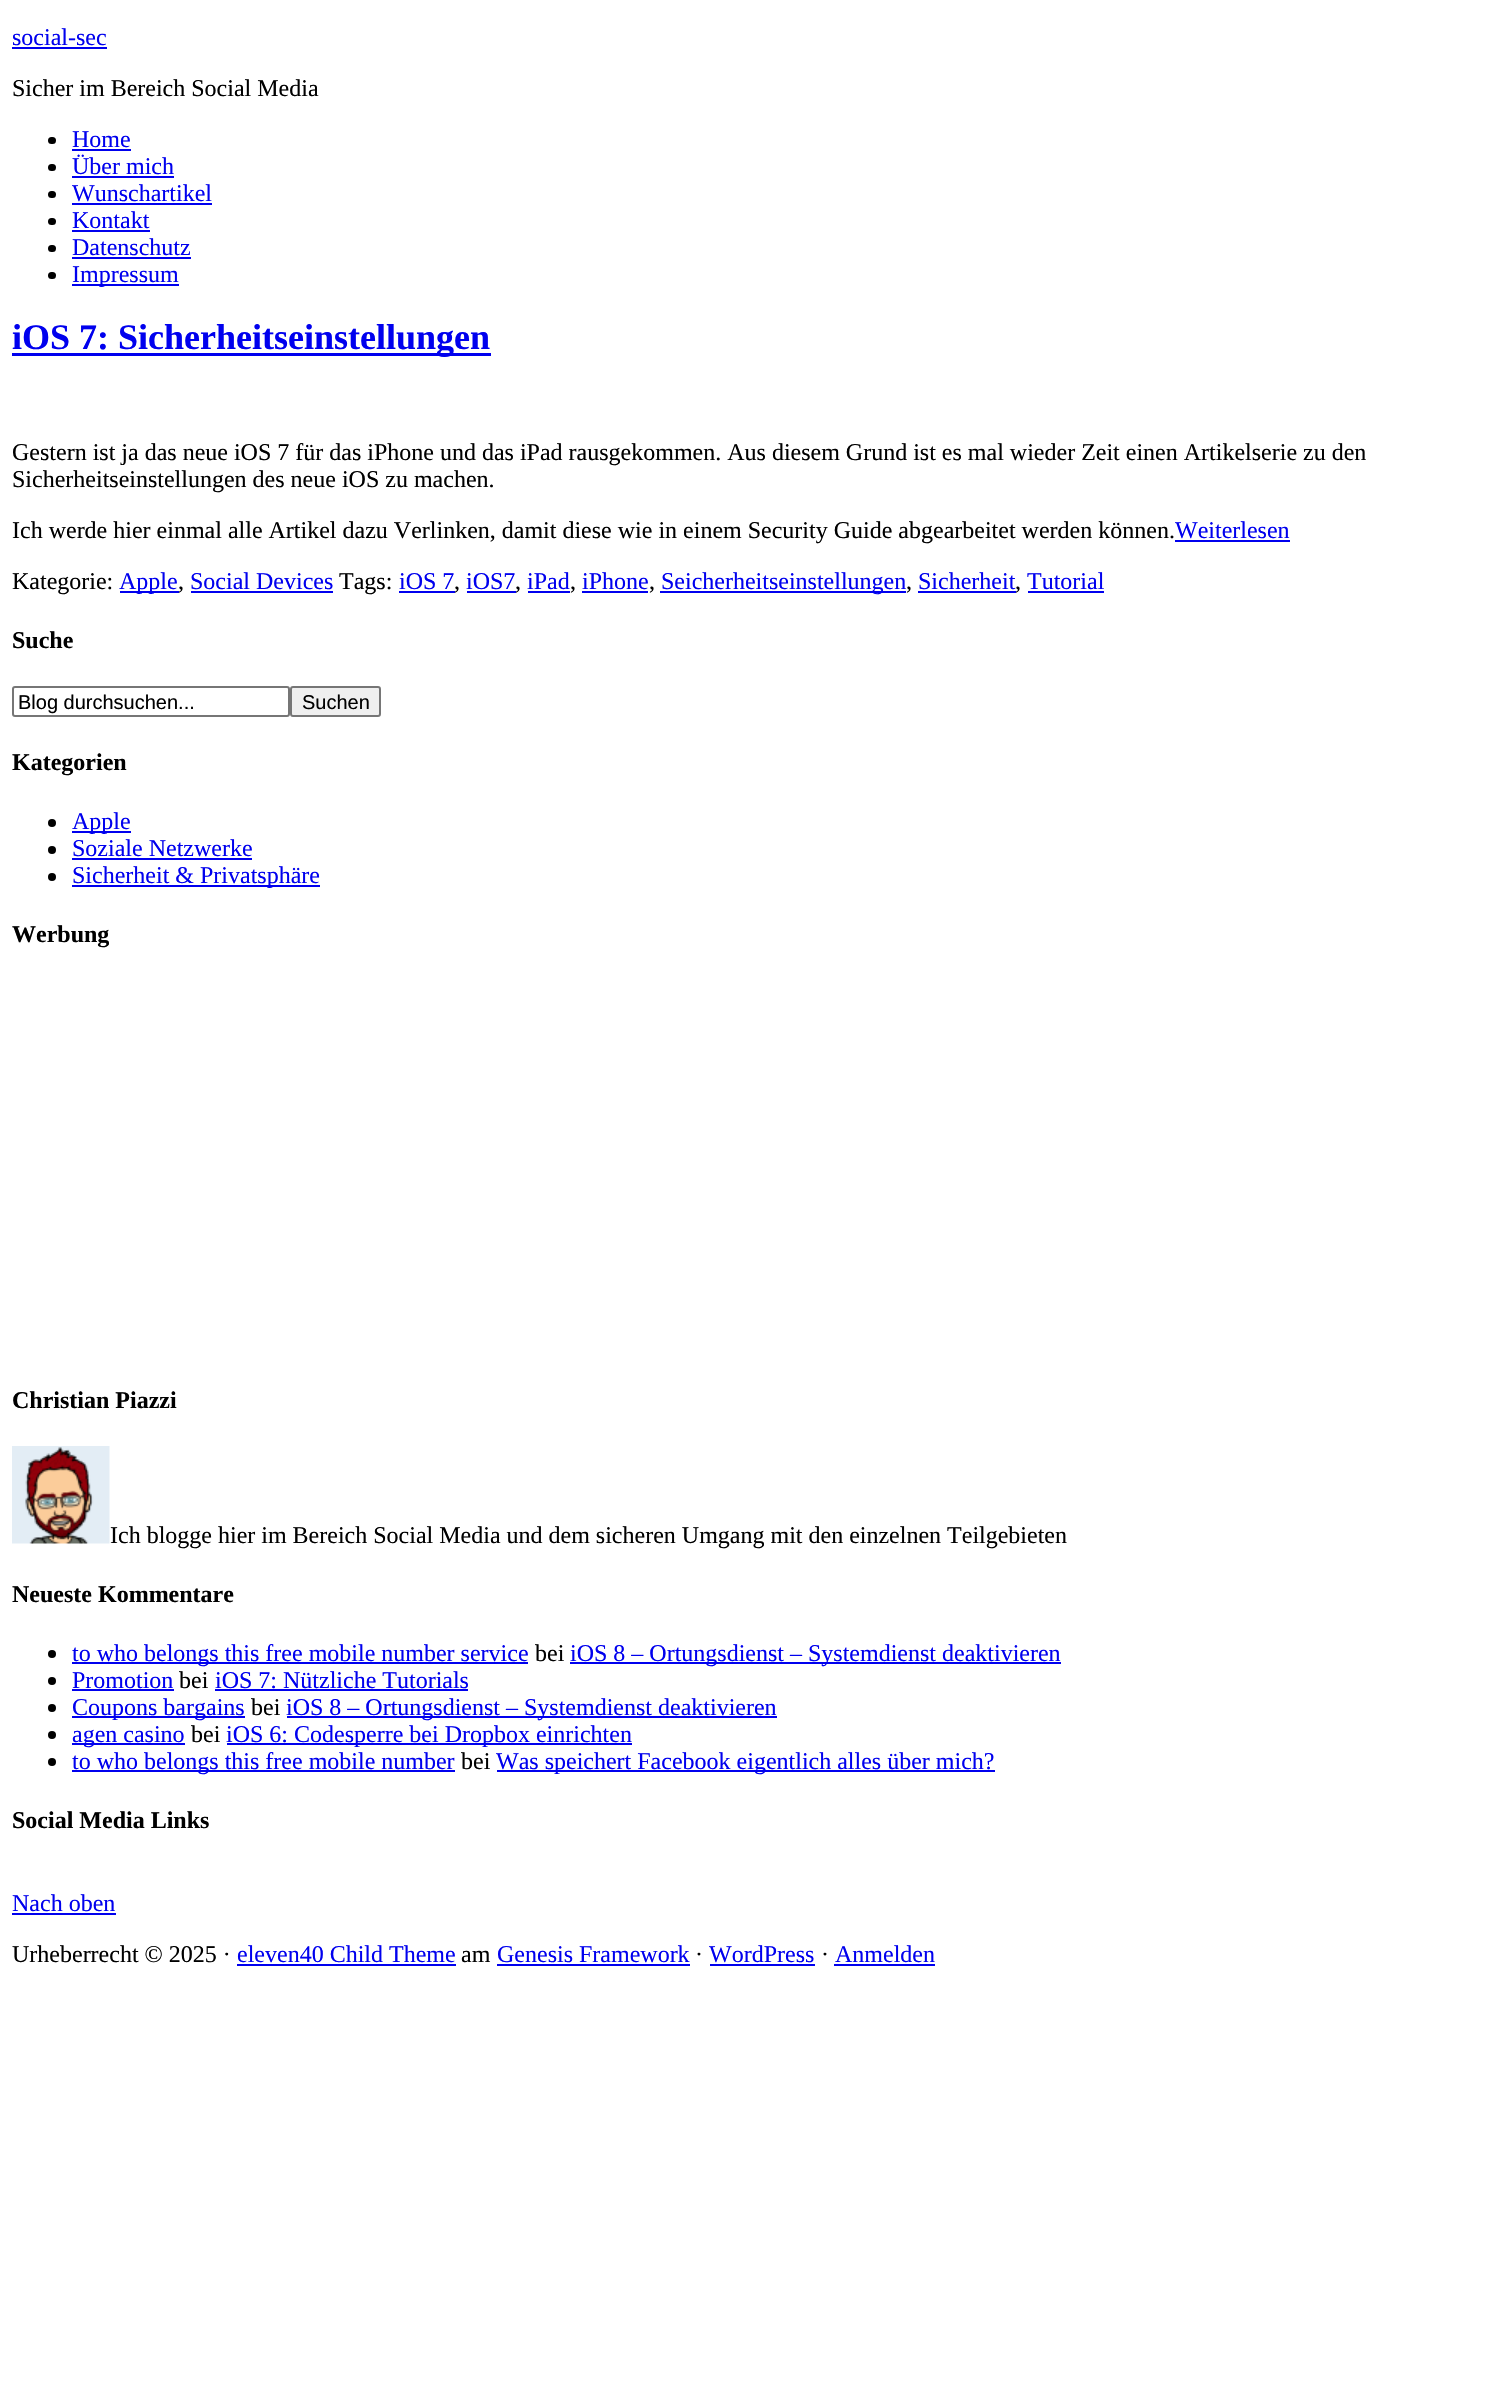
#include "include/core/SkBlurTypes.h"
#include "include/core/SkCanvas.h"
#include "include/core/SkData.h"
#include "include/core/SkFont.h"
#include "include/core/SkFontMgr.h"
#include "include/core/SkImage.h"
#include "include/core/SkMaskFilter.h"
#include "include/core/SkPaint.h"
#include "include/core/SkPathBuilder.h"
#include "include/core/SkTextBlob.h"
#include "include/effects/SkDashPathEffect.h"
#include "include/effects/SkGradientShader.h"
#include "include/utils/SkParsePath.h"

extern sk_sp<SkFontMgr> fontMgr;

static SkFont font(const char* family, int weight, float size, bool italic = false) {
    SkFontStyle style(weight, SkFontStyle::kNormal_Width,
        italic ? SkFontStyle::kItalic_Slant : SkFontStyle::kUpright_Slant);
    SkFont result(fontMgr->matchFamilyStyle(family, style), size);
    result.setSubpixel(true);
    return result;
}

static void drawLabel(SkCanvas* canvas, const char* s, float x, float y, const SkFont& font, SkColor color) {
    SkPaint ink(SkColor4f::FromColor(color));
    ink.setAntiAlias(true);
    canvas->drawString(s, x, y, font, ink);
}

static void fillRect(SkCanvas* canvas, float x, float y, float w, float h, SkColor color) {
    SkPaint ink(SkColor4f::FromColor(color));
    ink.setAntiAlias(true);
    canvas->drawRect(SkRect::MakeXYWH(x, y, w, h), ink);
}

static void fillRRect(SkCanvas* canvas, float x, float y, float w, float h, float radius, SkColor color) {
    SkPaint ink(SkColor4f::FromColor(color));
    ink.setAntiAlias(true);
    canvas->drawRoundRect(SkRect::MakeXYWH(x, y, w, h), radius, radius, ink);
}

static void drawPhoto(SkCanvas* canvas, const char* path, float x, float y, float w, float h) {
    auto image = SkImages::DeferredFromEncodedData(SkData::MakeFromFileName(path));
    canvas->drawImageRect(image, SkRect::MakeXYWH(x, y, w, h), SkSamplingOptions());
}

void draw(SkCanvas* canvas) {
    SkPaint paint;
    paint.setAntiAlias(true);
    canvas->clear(0xFFFFFFFF);
    SkFont font1 = font("Liberation Serif", 400, 24);
    drawLabel(canvas, "social-sec", 12, 45, font1, 0xFF0000EE);
    fillRect(canvas, 12, 47, 95, 2, 0xFF0000EE);
    drawLabel(canvas, "Sicher im Bereich Social Media", 12, 96, font1, 0xFF000000);
    fillRRect(canvas, 48, 137, 8, 7, 3.5f, 0xFF000000);
    drawLabel(canvas, "Home", 72, 147, font1, 0xFF0000EE);
    fillRect(canvas, 72, 149, 59, 2, 0xFF0000EE);
    fillRRect(canvas, 48, 164, 8, 7, 3.5f, 0xFF000000);
    drawLabel(canvas, "Über mich", 72, 174, font1, 0xFF0000EE);
    fillRect(canvas, 72, 176, 102, 2, 0xFF0000EE);
    fillRRect(canvas, 48, 191, 8, 7, 3.5f, 0xFF000000);
    drawLabel(canvas, "Wunschartikel", 72, 201, font1, 0xFF0000EE);
    fillRect(canvas, 72, 203, 140, 2, 0xFF0000EE);
    fillRRect(canvas, 48, 218, 8, 7, 3.5f, 0xFF000000);
    drawLabel(canvas, "Kontakt", 72, 228, font1, 0xFF0000EE);
    fillRect(canvas, 72, 230, 78, 2, 0xFF0000EE);
    fillRRect(canvas, 48, 245, 8, 7, 3.5f, 0xFF000000);
    drawLabel(canvas, "Datenschutz", 72, 255, font1, 0xFF0000EE);
    fillRect(canvas, 72, 257, 119, 2, 0xFF0000EE);
    fillRRect(canvas, 48, 272, 8, 7, 3.5f, 0xFF000000);
    fillRect(canvas, 72, 284, 107, 2, 0xFF0000EE);
    drawLabel(canvas, "Impressum", 72, 282, font1, 0xFF0000EE);
    fillRect(canvas, 12, 353, 479, 3, 0xFF0000EE);
    SkFont font2 = font("Liberation Serif", 700, 36);
    drawLabel(canvas, "iOS 7: Sicherheitseinstellungen", 12, 349, font2, 0xFF0000EE);
    drawLabel(canvas, "Gestern ist ja das neue iOS 7 für das iPhone und das iPad rausgekommen. Aus diesem Grund ist es mal wieder Zeit einen Artikelserie zu den", 12, 460, font1, 0xFF000000);
    drawLabel(canvas, "Sicherheitseinstellungen des neue iOS zu machen.", 12, 487, font1, 0xFF000000);
    drawLabel(canvas, "Ich werde hier einmal alle Artikel dazu Verlinken, damit diese wie in einem Security Guide abgearbeitet werden können.", 12, 538, font1, 0xFF000000);
    drawLabel(canvas, "Weiterlesen", 1175, 538, font1, 0xFF0000EE);
    fillRect(canvas, 1175, 540, 115, 2, 0xFF0000EE);
    drawLabel(canvas, "Kategorie:", 12, 589, font1, 0xFF000000);
    fillRect(canvas, 120, 591, 59, 2, 0xFF0000EE);
    drawLabel(canvas, "Apple", 119, 589, font1, 0xFF0000EE);
    drawLabel(canvas, ",", 178, 589, font1, 0xFF000000);
    fillRect(canvas, 191, 591, 142, 2, 0xFF0000EE);
    drawLabel(canvas, "Social Devices", 190, 589, font1, 0xFF0000EE);
    drawLabel(canvas, "Tags:", 339, 589, font1, 0xFF000000);
    drawLabel(canvas, "iOS 7", 399, 589, font1, 0xFF0000EE);
    fillRect(canvas, 399, 591, 56, 2, 0xFF0000EE);
    drawLabel(canvas, ",", 454, 589, font1, 0xFF000000);
    drawLabel(canvas, "iOS7", 466, 589, font1, 0xFF0000EE);
    drawLabel(canvas, ",", 515, 589, font1, 0xFF000000);
    fillRect(canvas, 467, 591, 49, 2, 0xFF0000EE);
    drawLabel(canvas, "iPad", 527, 589, font1, 0xFF0000EE);
    drawLabel(canvas, ",", 570, 589, font1, 0xFF000000);
    fillRect(canvas, 528, 591, 42, 2, 0xFF0000EE);
    drawLabel(canvas, "iPhone", 582, 589, font1, 0xFF0000EE);
    drawLabel(canvas, ",", 649, 589, font1, 0xFF000000);
    fillRect(canvas, 582, 591, 66, 2, 0xFF0000EE);
    fillRect(canvas, 660, 591, 246, 2, 0xFF0000EE);
    drawLabel(canvas, "Seicherheitseinstellungen", 661, 589, font1, 0xFF0000EE);
    drawLabel(canvas, ",", 906, 589, font1, 0xFF000000);
    drawLabel(canvas, "Sicherheit", 918, 589, font1, 0xFF0000EE);
    drawLabel(canvas, ",", 1015, 589, font1, 0xFF000000);
    fillRect(canvas, 918, 591, 98, 2, 0xFF0000EE);
    fillRect(canvas, 1028, 591, 76, 2, 0xFF0000EE);
    drawLabel(canvas, "Tutorial", 1027, 589, font1, 0xFF0000EE);
    SkFont font3 = font("Liberation Serif", 700, 24);
    drawLabel(canvas, "Suche", 12, 648, font3, 0xFF000000);
    paint.setStroke(true);
    paint.setStrokeWidth(2);
    paint.setColor(0xFF767676);
    canvas->drawRoundRect(SkRect::MakeXYWH(13, 687, 276, 29), 2, 2, paint);
    SkFont font4 = font("Liberation Sans", 400, 20);
    drawLabel(canvas, "Blog durchsuchen...", 18, 709, font4, 0xFF000000);
    paint.setStroke(false);
    paint.setColor(0xFFEFEFEF);
    canvas->drawRoundRect(SkRect::MakeXYWH(291, 687, 89, 29), 2, 2, paint);
    paint.setStroke(true);
    paint.setColor(0xFF767676);
    canvas->drawRoundRect(SkRect::MakeXYWH(291, 687, 89, 29), 2, 2, paint);
    drawLabel(canvas, "Suchen", 302, 709, font4, 0xFF000000);
    drawLabel(canvas, "Kategorien", 12, 770, font3, 0xFF000000);
    paint.setStroke(false);
    paint.setColor(0xFF000000);
    canvas->drawCircle(52, 823, 4, paint);
    fillRect(canvas, 72, 831, 59, 2, 0xFF0000EE);
    drawLabel(canvas, "Apple", 72, 829, font1, 0xFF0000EE);
    canvas->drawCircle(52, 850, 4, paint);
    drawLabel(canvas, "Soziale Netzwerke", 72, 856, font1, 0xFF0000EE);
    fillRect(canvas, 72, 858, 180, 2, 0xFF0000EE);
    canvas->drawCircle(52, 877, 4, paint);
    fillRect(canvas, 72, 885, 248, 2, 0xFF0000EE);
    drawLabel(canvas, "Sicherheit & Privatsphäre", 72, 883, font1, 0xFF0000EE);
    drawLabel(canvas, "Werbung", 12, 942, font3, 0xFF000000);
    drawLabel(canvas, "Christian Piazzi", 12, 1408, font3, 0xFF000000);
    drawPhoto(canvas, "assets/img1.png", 12, 1446, 98, 98);
    drawLabel(canvas, "Ich blogge hier im Bereich Social Media und dem sicheren Umgang mit den einzelnen Teilgebieten", 110, 1543, font1, 0xFF000000);
    drawLabel(canvas, "Neueste Kommentare", 12, 1602, font3, 0xFF000000);
    canvas->drawCircle(52, 1654, 4, paint);
    fillRect(canvas, 72, 1662, 456, 2, 0xFF0000EE);
    drawLabel(canvas, "to who belongs this free mobile number service", 72, 1661, font1, 0xFF0000EE);
    drawLabel(canvas, "bei", 535, 1661, font1, 0xFF000000);
    fillRect(canvas, 570, 1662, 491, 2, 0xFF0000EE);
    drawLabel(canvas, "iOS 8 – Ortungsdienst – Systemdienst deaktivieren", 570, 1661, font1, 0xFF0000EE);
    canvas->drawCircle(52, 1681, 4, paint);
    drawLabel(canvas, "Promotion", 72, 1688, font1, 0xFF0000EE);
    fillRect(canvas, 72, 1689, 102, 2, 0xFF0000EE);
    drawLabel(canvas, "bei", 179, 1688, font1, 0xFF000000);
    drawLabel(canvas, "iOS 7: Nützliche Tutorials", 215, 1688, font1, 0xFF0000EE);
    fillRect(canvas, 215, 1689, 253, 2, 0xFF0000EE);
    canvas->drawCircle(52, 1708, 4, paint);
    fillRect(canvas, 72, 1716, 173, 2, 0xFF0000EE);
    drawLabel(canvas, "Coupons bargains", 72, 1715, font1, 0xFF0000EE);
    drawLabel(canvas, "bei", 251, 1715, font1, 0xFF000000);
    fillRect(canvas, 287, 1716, 490, 2, 0xFF0000EE);
    drawLabel(canvas, "iOS 8 – Ortungsdienst – Systemdienst deaktivieren", 286, 1715, font1, 0xFF0000EE);
    canvas->drawCircle(52, 1735, 4, paint);
    fillRect(canvas, 72, 1743, 113, 2, 0xFF0000EE);
    drawLabel(canvas, "agen casino", 72, 1742, font1, 0xFF0000EE);
    drawLabel(canvas, "bei", 191, 1742, font1, 0xFF000000);
    fillRect(canvas, 227, 1743, 405, 2, 0xFF0000EE);
    drawLabel(canvas, "iOS 6: Codesperre bei Dropbox einrichten", 226, 1742, font1, 0xFF0000EE);
    canvas->drawCircle(52, 1762, 4, paint);
    fillRect(canvas, 72, 1770, 383, 2, 0xFF0000EE);
    drawLabel(canvas, "to who belongs this free mobile number", 72, 1769, font1, 0xFF0000EE);
    drawLabel(canvas, "bei", 461, 1769, font1, 0xFF000000);
    fillRect(canvas, 497, 1770, 498, 2, 0xFF0000EE);
    drawLabel(canvas, "Was speichert Facebook eigentlich alles über mich?", 496, 1769, font1, 0xFF0000EE);
    drawLabel(canvas, "Social Media Links", 12, 1828, font3, 0xFF000000);
    drawLabel(canvas, "Nach oben", 12, 1911, font1, 0xFF0000EE);
    fillRect(canvas, 12, 1913, 104, 2, 0xFF0000EE);
    drawLabel(canvas, "Urheberrecht © 2025 ·", 12, 1962, font1, 0xFF000000);
    drawLabel(canvas, "eleven40 Child Theme", 237, 1962, font1, 0xFF0000EE);
    fillRect(canvas, 237, 1964, 219, 2, 0xFF0000EE);
    drawLabel(canvas, "am", 461, 1962, font1, 0xFF000000);
    drawLabel(canvas, "Genesis Framework", 497, 1962, font1, 0xFF0000EE);
    fillRect(canvas, 497, 1964, 193, 2, 0xFF0000EE);
    drawLabel(canvas, "·", 695, 1962, font1, 0xFF000000);
    drawLabel(canvas, "WordPress", 709, 1962, font1, 0xFF0000EE);
    fillRect(canvas, 710, 1964, 105, 2, 0xFF0000EE);
    drawLabel(canvas, "·", 821, 1962, font1, 0xFF000000);
    drawLabel(canvas, "Anmelden", 835, 1962, font1, 0xFF0000EE);
    fillRect(canvas, 834, 1964, 101, 2, 0xFF0000EE);
}
